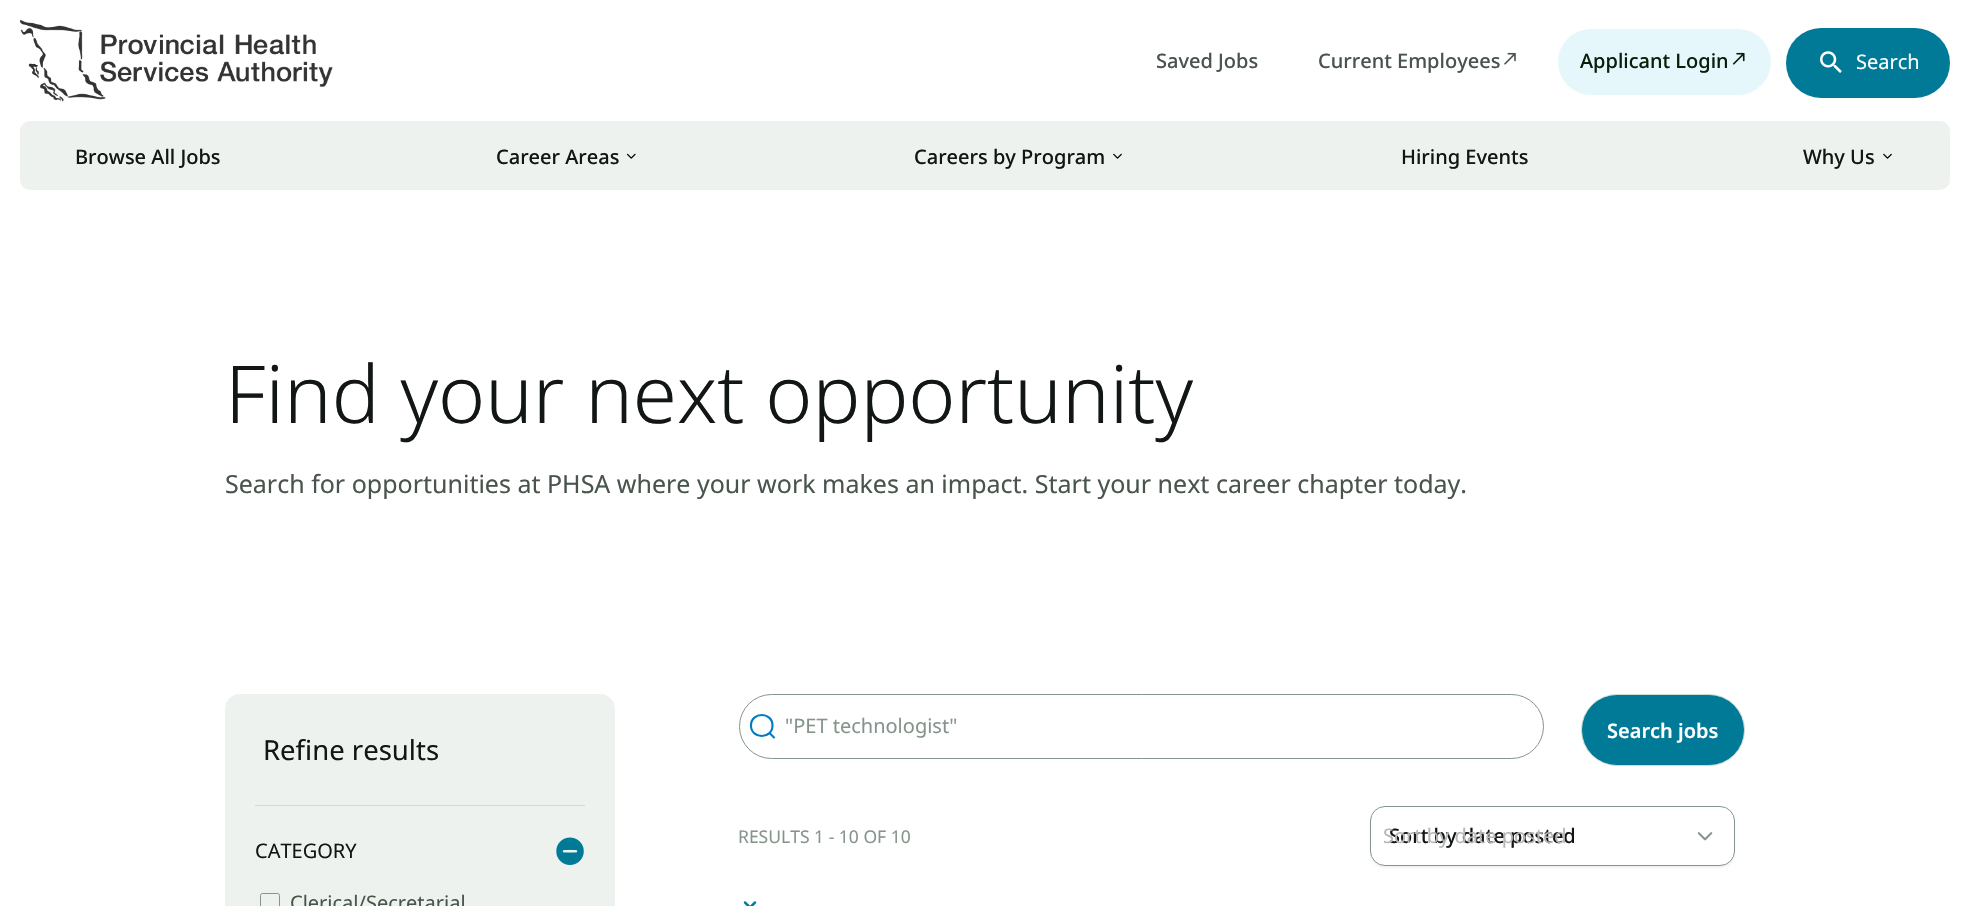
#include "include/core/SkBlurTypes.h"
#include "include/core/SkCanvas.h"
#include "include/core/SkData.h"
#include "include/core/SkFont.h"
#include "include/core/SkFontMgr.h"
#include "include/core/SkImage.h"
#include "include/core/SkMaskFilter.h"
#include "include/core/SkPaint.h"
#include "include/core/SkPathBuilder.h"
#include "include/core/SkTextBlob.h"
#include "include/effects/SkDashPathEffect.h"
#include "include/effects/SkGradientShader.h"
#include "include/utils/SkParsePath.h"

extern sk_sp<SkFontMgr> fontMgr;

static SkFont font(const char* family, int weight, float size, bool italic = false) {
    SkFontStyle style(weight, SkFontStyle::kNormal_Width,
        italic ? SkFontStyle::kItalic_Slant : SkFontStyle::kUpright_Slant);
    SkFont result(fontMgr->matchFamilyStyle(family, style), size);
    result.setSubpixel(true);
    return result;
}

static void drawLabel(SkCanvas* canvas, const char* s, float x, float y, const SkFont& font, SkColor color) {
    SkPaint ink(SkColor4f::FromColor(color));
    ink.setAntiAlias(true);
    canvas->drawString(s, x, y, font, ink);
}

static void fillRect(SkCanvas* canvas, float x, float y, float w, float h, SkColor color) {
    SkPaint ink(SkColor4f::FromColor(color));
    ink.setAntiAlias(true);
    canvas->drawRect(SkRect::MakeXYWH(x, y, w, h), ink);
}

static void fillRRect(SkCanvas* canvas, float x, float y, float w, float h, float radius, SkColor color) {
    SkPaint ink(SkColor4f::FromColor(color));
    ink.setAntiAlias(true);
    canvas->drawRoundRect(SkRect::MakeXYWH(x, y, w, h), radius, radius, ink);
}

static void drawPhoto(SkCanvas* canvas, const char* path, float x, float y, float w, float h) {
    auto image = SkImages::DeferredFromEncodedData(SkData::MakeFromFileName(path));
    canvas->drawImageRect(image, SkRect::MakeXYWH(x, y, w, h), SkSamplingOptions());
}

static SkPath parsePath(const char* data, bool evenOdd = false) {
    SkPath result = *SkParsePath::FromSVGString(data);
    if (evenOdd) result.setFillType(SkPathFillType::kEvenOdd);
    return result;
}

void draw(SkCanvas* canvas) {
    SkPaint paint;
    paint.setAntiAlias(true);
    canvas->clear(0xFFFFFFFF);
    drawPhoto(canvas, "assets/img1.png", 20, 20, 313, 82);
    SkFont font1 = font("Noto Sans", 500, 20);
    drawLabel(canvas, "Saved Jobs", 1156, 68, font1, 0xFF49544D);
    drawLabel(canvas, "Current Employees", 1318, 68, font1, 0xFF49544D);
    drawPhoto(canvas, "assets/img2.png", 1504, 52, 12, 13);
    fillRRect(canvas, 1558, 29, 213, 66, 33, 0xFFE6F7FB);
    drawLabel(canvas, "Applicant Login", 1580, 68, font1, 0xFF0B1D0B);
    drawPhoto(canvas, "assets/img3.png", 1733, 52, 12, 13);
    fillRRect(canvas, 1786, 28, 164, 70, 35, 0xFF007A97);
    drawPhoto(canvas, "assets/img4.png", 1820, 51, 22, 22);
    SkFont font2 = font("Noto Sans", 400, 20);
    drawLabel(canvas, "Search", 1856, 69, font2, 0xFFFFFFFF);
    fillRRect(canvas, 20, 121, 1930, 69, 10, 0xFFEDF2EE);
    drawLabel(canvas, "Browse All Jobs", 75, 164, font1, 0xFF121714);
    drawLabel(canvas, "Career Areas", 496, 164, font1, 0xFF121714);
    drawPhoto(canvas, "assets/img5.png", 626, 153, 10, 6);
    drawLabel(canvas, "Careers by Program", 914, 164, font1, 0xFF121714);
    drawPhoto(canvas, "assets/img6.png", 1113, 153, 9, 6);
    drawLabel(canvas, "Hiring Events", 1401, 164, font1, 0xFF121714);
    drawLabel(canvas, "Why Us", 1803, 164, font1, 0xFF121714);
    drawPhoto(canvas, "assets/img6.png", 1883, 153, 9, 6);
    SkFont font3 = font("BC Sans", 300, 80);
    drawLabel(canvas, "Find your next opportunity", 225, 423, font3, 0xFF121714);
    SkFont font4 = font("Noto Sans", 400, 25);
    drawLabel(canvas, "Search for opportunities at PHSA where your work makes an impact. Start your next career chapter today.", 225, 493, font4, 0xFF49544D);
    fillRRect(canvas, 225, 694, 390, 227, 15, 0xFFEDF2EE);
    SkFont font5 = font("Noto Sans", 400, 27.5f);
    drawLabel(canvas, "Refine results", 263, 760, font5, 0xFF121714);
    fillRect(canvas, 255, 805, 330, 1, 0xFFD1DBD6);
    drawLabel(canvas, "CATEGORY", 255, 858, font2, 0xFF121714);
    drawPhoto(canvas, "assets/img7.png", 556, 837, 28, 28);
    paint.setStroke(true);
    paint.setStrokeWidth(1);
    paint.setColor(0xFF86958C);
    canvas->drawRoundRect(SkRect::MakeXYWH(260.5f, 893.5f, 19, 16), 2, 2, paint);
    drawLabel(canvas, "Clerical/Secretarial", 290, 910, font2, 0xFF49544D);
    paint.setStrokeWidth(2.1f);
    paint.setStrokeCap(SkPaint::kRound_Cap);
    paint.setStrokeJoin(SkPaint::kRound_Join);
    paint.setColor(0xFF007BC2);
    canvas->drawPath(parsePath("M774 737.5L769.5 733M772.5 725.5C772.5 739.5 751 739.5 751 725.5C751 711.5 772.5 711.5 772.5 725.5Z"), paint);
    paint.setStrokeWidth(1);
    paint.setStrokeCap(SkPaint::kButt_Cap);
    paint.setStrokeJoin(SkPaint::kMiter_Join);
    paint.setColor(0xFF86958C);
    canvas->drawRoundRect(SkRect::MakeXYWH(739.5f, 694.5f, 804, 64), 32, 32, paint);
    drawLabel(canvas, "\"PET technologist\"", 785, 733, font2, 0xFF86958C);
    paint.setStroke(false);
    paint.setColor(0xFF007A97);
    canvas->drawRoundRect(SkRect::MakeXYWH(1581.5f, 694.5f, 163, 71), 35.5f, 35.5f, paint);
    paint.setStroke(true);
    paint.setColor(0xFFD1DBD6);
    canvas->drawRoundRect(SkRect::MakeXYWH(1581.5f, 694.5f, 163, 71), 35.5f, 35.5f, paint);
    SkFont font6 = font("Noto Sans", 600, 20);
    drawLabel(canvas, "Search jobs", 1607, 738, font6, 0xFFFFFFFF);
    paint.setStroke(false);
    paint.setColor(0x0D000000);
    paint.setMaskFilter(SkMaskFilter::MakeBlur(kNormal_SkBlurStyle, 1));
    canvas->drawRoundRect(SkRect::MakeXYWH(1370, 808, 365, 60), 15, 15, paint);
    paint.setMaskFilter(nullptr);
    paint.setColor(0xFFFFFFFF);
    canvas->drawRoundRect(SkRect::MakeXYWH(1370.5f, 806.5f, 364, 59), 14.5f, 14.5f, paint);
    paint.setStroke(true);
    paint.setColor(0xFF86958C);
    canvas->drawRoundRect(SkRect::MakeXYWH(1370.5f, 806.5f, 364, 59), 14.5f, 14.5f, paint);
    drawLabel(canvas, "Sort by date posted", 1389, 843, font1, 0xFF121714);
    drawLabel(canvas, "Sort by date posted", 1383, 843, font2, 0xFFB6B7B6);
    drawPhoto(canvas, "assets/img8.png", 1697, 832, 16, 9);
    SkFont font7 = font("Noto Sans", 400, 17.5f);
    drawLabel(canvas, "RESULTS 1 - 10 OF 10", 738, 843, font7, 0xFF86958C);
    drawPhoto(canvas, "assets/img9.png", 743, 901, 14, 5);
}
